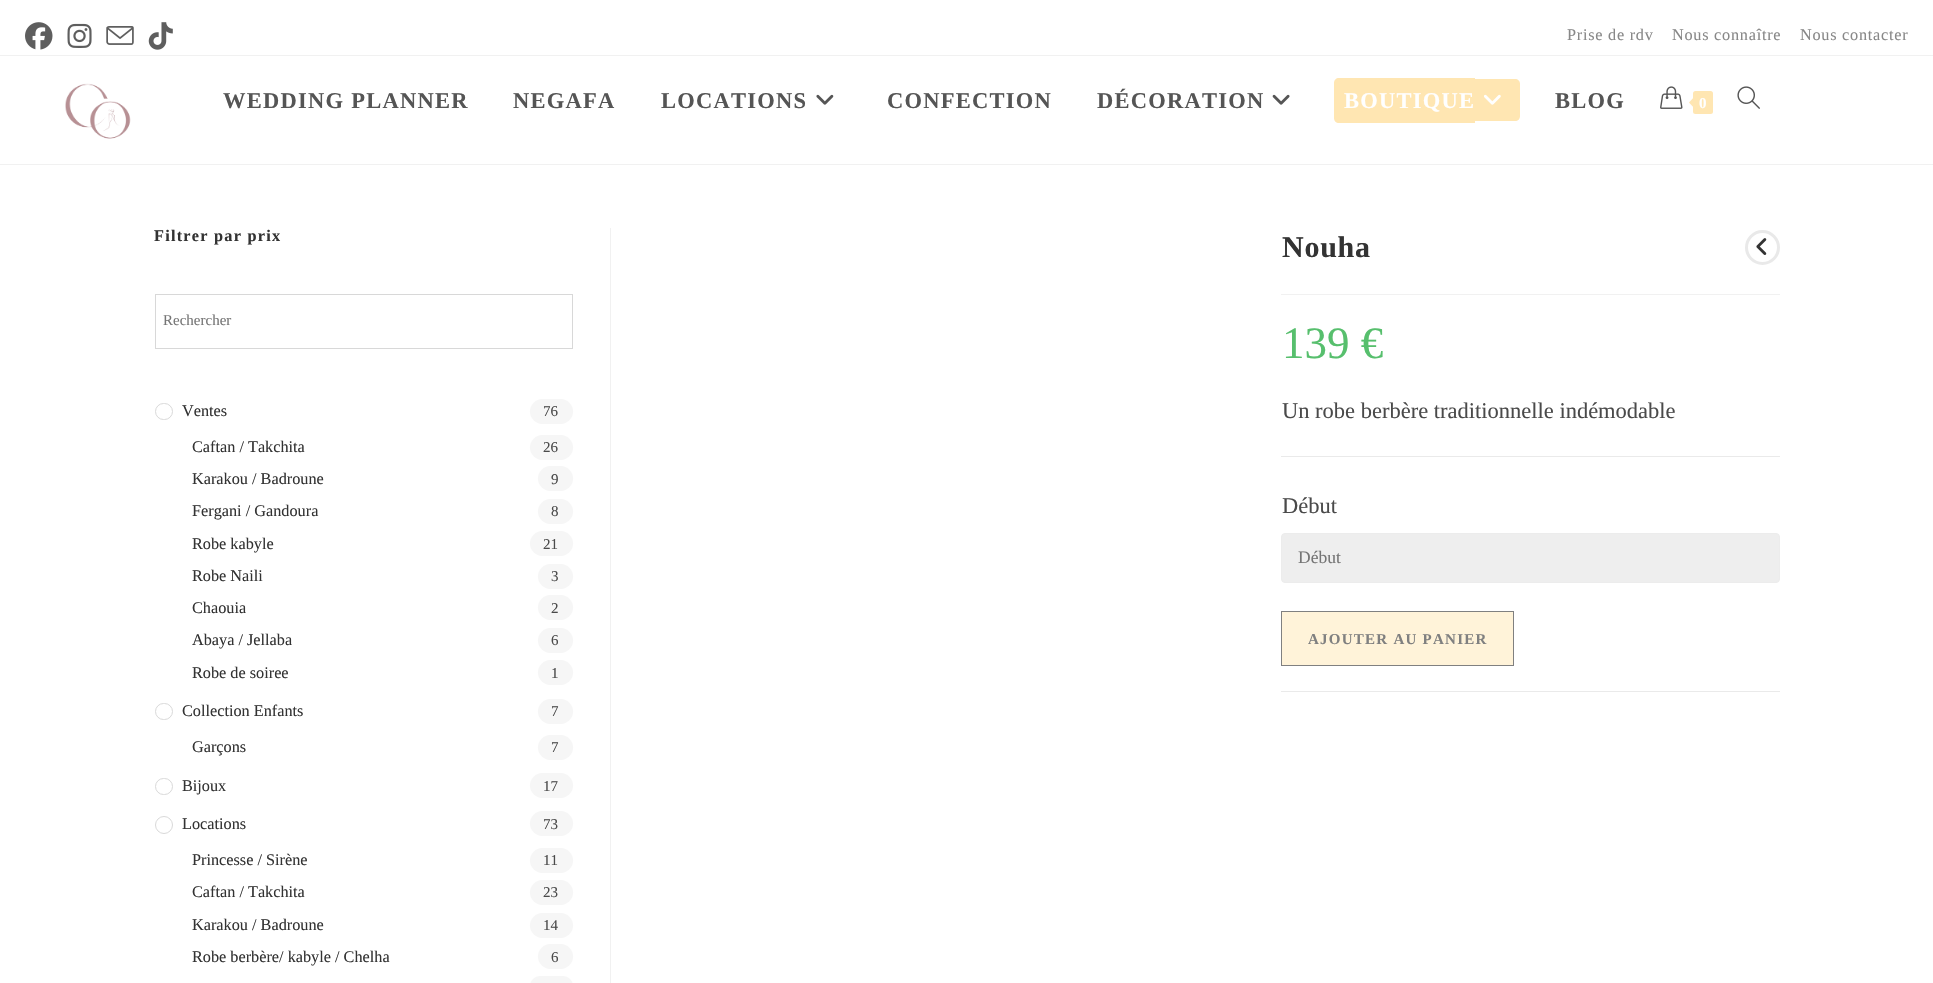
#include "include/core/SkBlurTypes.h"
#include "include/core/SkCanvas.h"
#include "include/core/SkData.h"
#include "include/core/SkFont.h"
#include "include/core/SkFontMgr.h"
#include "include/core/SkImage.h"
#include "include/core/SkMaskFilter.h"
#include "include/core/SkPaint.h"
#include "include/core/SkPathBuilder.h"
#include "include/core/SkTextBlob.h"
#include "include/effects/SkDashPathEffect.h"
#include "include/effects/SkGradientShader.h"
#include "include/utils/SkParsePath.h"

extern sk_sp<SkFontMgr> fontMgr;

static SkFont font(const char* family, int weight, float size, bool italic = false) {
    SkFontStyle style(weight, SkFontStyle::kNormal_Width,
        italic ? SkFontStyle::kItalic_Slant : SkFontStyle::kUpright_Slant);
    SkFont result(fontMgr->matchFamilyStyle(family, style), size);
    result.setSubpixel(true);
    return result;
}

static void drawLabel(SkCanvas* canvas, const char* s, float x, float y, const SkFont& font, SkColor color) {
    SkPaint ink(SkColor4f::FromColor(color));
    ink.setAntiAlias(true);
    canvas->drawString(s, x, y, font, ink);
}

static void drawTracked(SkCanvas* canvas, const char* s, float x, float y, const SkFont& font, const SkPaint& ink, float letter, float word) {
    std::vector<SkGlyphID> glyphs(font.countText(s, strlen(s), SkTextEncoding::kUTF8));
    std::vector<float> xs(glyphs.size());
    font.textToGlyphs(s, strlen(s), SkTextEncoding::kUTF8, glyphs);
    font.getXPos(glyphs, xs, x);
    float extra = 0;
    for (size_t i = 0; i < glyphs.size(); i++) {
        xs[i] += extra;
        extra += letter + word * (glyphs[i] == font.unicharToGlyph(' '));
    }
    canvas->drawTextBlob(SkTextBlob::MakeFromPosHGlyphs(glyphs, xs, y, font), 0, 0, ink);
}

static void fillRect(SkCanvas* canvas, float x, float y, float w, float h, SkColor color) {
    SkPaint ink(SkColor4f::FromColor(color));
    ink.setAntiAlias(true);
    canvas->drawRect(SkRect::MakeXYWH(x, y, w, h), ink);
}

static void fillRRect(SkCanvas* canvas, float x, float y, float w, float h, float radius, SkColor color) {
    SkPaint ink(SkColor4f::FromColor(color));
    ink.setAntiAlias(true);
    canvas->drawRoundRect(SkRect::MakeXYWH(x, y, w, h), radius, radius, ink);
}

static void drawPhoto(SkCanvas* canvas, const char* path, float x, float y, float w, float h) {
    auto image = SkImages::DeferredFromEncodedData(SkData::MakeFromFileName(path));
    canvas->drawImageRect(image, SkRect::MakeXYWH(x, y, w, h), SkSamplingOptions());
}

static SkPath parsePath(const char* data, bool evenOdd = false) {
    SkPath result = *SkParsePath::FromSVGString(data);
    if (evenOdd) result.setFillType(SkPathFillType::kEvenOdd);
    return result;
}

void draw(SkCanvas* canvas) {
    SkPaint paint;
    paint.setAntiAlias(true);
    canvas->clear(0xFFFFFFFF);
    fillRect(canvas, 0, 55, 1933, 1, 0xFFF1F1F1);
    drawPhoto(canvas, "assets/img1.png", 25, 22, 28, 28);
    drawPhoto(canvas, "assets/img2.png", 67, 23, 25, 25);
    drawPhoto(canvas, "assets/img3.png", 106, 26, 28, 19);
    drawPhoto(canvas, "assets/img4.png", 148, 22, 25, 28);
    SkFont font1 = font("Liberation Serif", 400, 16.25f);
    paint.setColor(0xFF888888);
    drawTracked(canvas, "Prise de rdv", 1567, 40, font1, paint, 0.75f, 0);
    drawTracked(canvas, "Nous connaître", 1672, 40, font1, paint, 0.75f, 0);
    drawTracked(canvas, "Nous contacter", 1800, 40, font1, paint, 0.75f, 0);
    fillRect(canvas, 0, 164, 1933, 1, 0xFFF1F1F1);
    drawPhoto(canvas, "assets/img5.png", 65, 83, 66, 56);
    SkFont font2 = font("Liberation Serif", 700, 22.5f);
    paint.setColor(0xFF555555);
    drawTracked(canvas, "WEDDING PLANNER", 223, 108, font2, paint, 1.25f, 0);
    drawTracked(canvas, "NEGAFA", 513, 108, font2, paint, 1.25f, 0);
    drawTracked(canvas, "LOCATIONS", 661, 108, font2, paint, 1.25f, 0);
    drawPhoto(canvas, "assets/img6.png", 816, 94, 18, 11);
    drawTracked(canvas, "CONFECTION", 887, 108, font2, paint, 1.25f, 0);
    drawTracked(canvas, "DÉCORATION", 1097, 108, font2, paint, 1.25f, 0);
    drawPhoto(canvas, "assets/img7.png", 1272, 94, 18, 11);
    paint.setColor(0xFFFFE6B2);
    canvas->drawPath(parsePath("M1339 78H1475V123H1339C1336 123 1334 121 1334 118V83C1334 80 1336 78 1339 78Z"), paint);
    canvas->drawPath(parsePath("M1475 79H1515C1518 79 1520 81 1520 84V116C1520 119 1518 121 1515 121H1475Z"), paint);
    paint.setColor(0xFFFFFFFF);
    drawTracked(canvas, "BOUTIQUE", 1344, 108, font2, paint, 1.25f, 0);
    drawPhoto(canvas, "assets/img8.png", 1484, 94, 17, 11);
    paint.setColor(0xFF555555);
    drawTracked(canvas, "BLOG", 1555, 108, font2, paint, 1.25f, 0);
    drawPhoto(canvas, "assets/img9.png", 1660, 86, 23, 23);
    fillRRect(canvas, 1693, 91, 20, 23, 2.5f, 0xFFFFE6B2);
    paint.setColor(0xFFFFE6B2);
    canvas->drawPath(parsePath("M1695 96V109L1689 102.5Z"), paint);
    SkFont font3 = font("Liberation Serif", 700, 15);
    drawLabel(canvas, "0", 1699, 108, font3, 0xFFFFFFFF);
    drawPhoto(canvas, "assets/img10.png", 1737, 86, 23, 23);
    SkFont font4 = font("Liberation Serif", 700, 16.25f);
    paint.setColor(0xFF333333);
    drawTracked(canvas, "Filtrer par prix", 154, 241, font4, paint, 1.25f, 0);
    paint.setStroke(true);
    paint.setStrokeWidth(1);
    paint.setColor(0xFFD8D8D8);
    canvas->drawRect(SkRect::MakeXYWH(155.5f, 294.5f, 417, 54), paint);
    SkFont font5 = font("Liberation Serif", 400, 15);
    drawLabel(canvas, "Rechercher", 163, 325, font5, 0xFF757575);
    paint.setColor(0xFFD9D9D9);
    canvas->drawRoundRect(SkRect::MakeXYWH(155.5f, 403.5f, 17, 16), 8, 8, paint);
    drawLabel(canvas, "Ventes", 182, 416, font1, 0xFF333333);
    fillRRect(canvas, 530, 399, 43, 25, 12.5f, 0xFFF6F6F6);
    drawLabel(canvas, "76", 543, 416, font5, 0xFF4A4A4A);
    drawLabel(canvas, "Caftan / Takchita", 192, 452, font1, 0xFF333333);
    fillRRect(canvas, 530, 435, 43, 25, 12.5f, 0xFFF6F6F6);
    drawLabel(canvas, "26", 543, 452, font5, 0xFF4A4A4A);
    drawLabel(canvas, "Karakou / Badroune", 192, 484, font1, 0xFF333333);
    fillRRect(canvas, 538, 466, 35, 25, 12.5f, 0xFFF6F6F6);
    drawLabel(canvas, "9", 551, 484, font5, 0xFF4A4A4A);
    drawLabel(canvas, "Fergani / Gandoura", 192, 516, font1, 0xFF333333);
    fillRRect(canvas, 538, 499, 35, 25, 12.5f, 0xFFF6F6F6);
    drawLabel(canvas, "8", 551, 516, font5, 0xFF4A4A4A);
    drawLabel(canvas, "Robe kabyle", 192, 549, font1, 0xFF333333);
    fillRRect(canvas, 530, 531, 43, 25, 12.5f, 0xFFF6F6F6);
    drawLabel(canvas, "21", 543, 549, font5, 0xFF4A4A4A);
    drawLabel(canvas, "Robe Naili", 192, 581, font1, 0xFF333333);
    fillRRect(canvas, 538, 564, 35, 25, 12.5f, 0xFFF6F6F6);
    drawLabel(canvas, "3", 551, 581, font5, 0xFF4A4A4A);
    drawLabel(canvas, "Chaouia", 192, 613, font1, 0xFF333333);
    fillRRect(canvas, 538, 595, 35, 25, 12.5f, 0xFFF6F6F6);
    drawLabel(canvas, "2", 551, 613, font5, 0xFF4A4A4A);
    drawLabel(canvas, "Abaya / Jellaba", 192, 645, font1, 0xFF333333);
    fillRRect(canvas, 538, 628, 35, 25, 12.5f, 0xFFF6F6F6);
    drawLabel(canvas, "6", 551, 645, font5, 0xFF4A4A4A);
    drawLabel(canvas, "Robe de soiree", 192, 678, font1, 0xFF333333);
    fillRRect(canvas, 538, 660, 35, 25, 12.5f, 0xFFF6F6F6);
    drawLabel(canvas, "1", 551, 678, font5, 0xFF4A4A4A);
    canvas->drawRoundRect(SkRect::MakeXYWH(155.5f, 703.5f, 17, 16), 8, 8, paint);
    drawLabel(canvas, "Collection Enfants", 182, 716, font1, 0xFF333333);
    fillRRect(canvas, 538, 699, 35, 25, 12.5f, 0xFFF6F6F6);
    drawLabel(canvas, "7", 551, 716, font5, 0xFF4A4A4A);
    drawLabel(canvas, "Garçons", 192, 752, font1, 0xFF333333);
    fillRRect(canvas, 538, 735, 35, 25, 12.5f, 0xFFF6F6F6);
    drawLabel(canvas, "7", 551, 752, font5, 0xFF4A4A4A);
    canvas->drawRoundRect(SkRect::MakeXYWH(155.5f, 778.5f, 17, 16), 8, 8, paint);
    drawLabel(canvas, "Bijoux", 182, 791, font1, 0xFF333333);
    fillRRect(canvas, 530, 773, 43, 25, 12.5f, 0xFFF6F6F6);
    drawLabel(canvas, "17", 543, 791, font5, 0xFF4A4A4A);
    canvas->drawCircle(164, 825, 8.5f, paint);
    drawLabel(canvas, "Locations", 182, 829, font1, 0xFF333333);
    fillRRect(canvas, 530, 811, 43, 25, 12.5f, 0xFFF6F6F6);
    drawLabel(canvas, "73", 543, 829, font5, 0xFF4A4A4A);
    drawLabel(canvas, "Princesse / Sirène", 192, 865, font1, 0xFF333333);
    fillRRect(canvas, 530, 848, 43, 25, 12.5f, 0xFFF6F6F6);
    drawLabel(canvas, "11", 543, 865, font5, 0xFF4A4A4A);
    drawLabel(canvas, "Caftan / Takchita", 192, 897, font1, 0xFF333333);
    fillRRect(canvas, 530, 880, 43, 25, 12.5f, 0xFFF6F6F6);
    drawLabel(canvas, "23", 543, 897, font5, 0xFF4A4A4A);
    drawLabel(canvas, "Karakou / Badroune", 192, 930, font1, 0xFF333333);
    fillRRect(canvas, 530, 913, 43, 25, 12.5f, 0xFFF6F6F6);
    drawLabel(canvas, "14", 543, 930, font5, 0xFF4A4A4A);
    drawLabel(canvas, "Robe berbère/ kabyle / Chelha", 192, 962, font1, 0xFF333333);
    fillRRect(canvas, 538, 944, 35, 25, 12.5f, 0xFFF6F6F6);
    drawLabel(canvas, "6", 551, 962, font5, 0xFF4A4A4A);
    fillRRect(canvas, 530, 976, 43, 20, 12.5f, 0xFFF6F6F6);
    fillRect(canvas, 610, 228, 1, 755, 0xFFF1F1F1);
    fillRect(canvas, 1281, 294, 499, 1, 0xFFF1F1F1);
    SkFont font6 = font("Liberation Serif", 700, 30);
    paint.setStroke(false);
    paint.setColor(0xFF333333);
    drawTracked(canvas, "Nouha", 1282, 257, font6, paint, 0.75f, 0);
    SkFont font7 = font("Liberation Serif", 400, 45);
    drawLabel(canvas, "139 €", 1282, 358, font7, 0xFF57BF6D);
    SkFont font8 = font("Liberation Serif", 400, 22.5f);
    drawLabel(canvas, "Un robe berbère traditionnelle indémodable", 1282, 418, font8, 0xFF4A4A4A);
    fillRect(canvas, 1281, 456, 499, 1, 0xFFEAEAEA);
    fillRect(canvas, 1281, 691, 499, 1, 0xFFEAEAEA);
    drawLabel(canvas, "Début", 1282, 513, font8, 0xFF4A4A4A);
    paint.setColor(0xFFEEEEEE);
    canvas->drawRoundRect(SkRect::MakeXYWH(1281.5f, 533.5f, 498, 49), 3.5f, 3.5f, paint);
    paint.setStroke(true);
    paint.setColor(0xFFECECEC);
    canvas->drawRoundRect(SkRect::MakeXYWH(1281.5f, 533.5f, 498, 49), 3.5f, 3.5f, paint);
    SkFont font9 = font("Liberation Serif", 400, 17.5f);
    drawLabel(canvas, "Début", 1298, 563, font9, 0xFF757575);
    paint.setStroke(false);
    paint.setColor(0xFFFFF3D9);
    canvas->drawRect(SkRect::MakeXYWH(1281.5f, 611.5f, 232, 54), paint);
    paint.setStroke(true);
    paint.setColor(0xFF808080);
    canvas->drawRect(SkRect::MakeXYWH(1281.5f, 611.5f, 232, 54), paint);
    paint.setStroke(false);
    drawTracked(canvas, "AJOUTER AU PANIER", 1308, 644, font3, paint, 1.25f, 0);
    paint.setStroke(true);
    paint.setStrokeWidth(3);
    paint.setColor(0xFFE9E9E9);
    canvas->drawCircle(1762.5f, 247.5f, 16, paint);
    drawPhoto(canvas, "assets/img11.png", 1756, 238, 11, 17);
}
